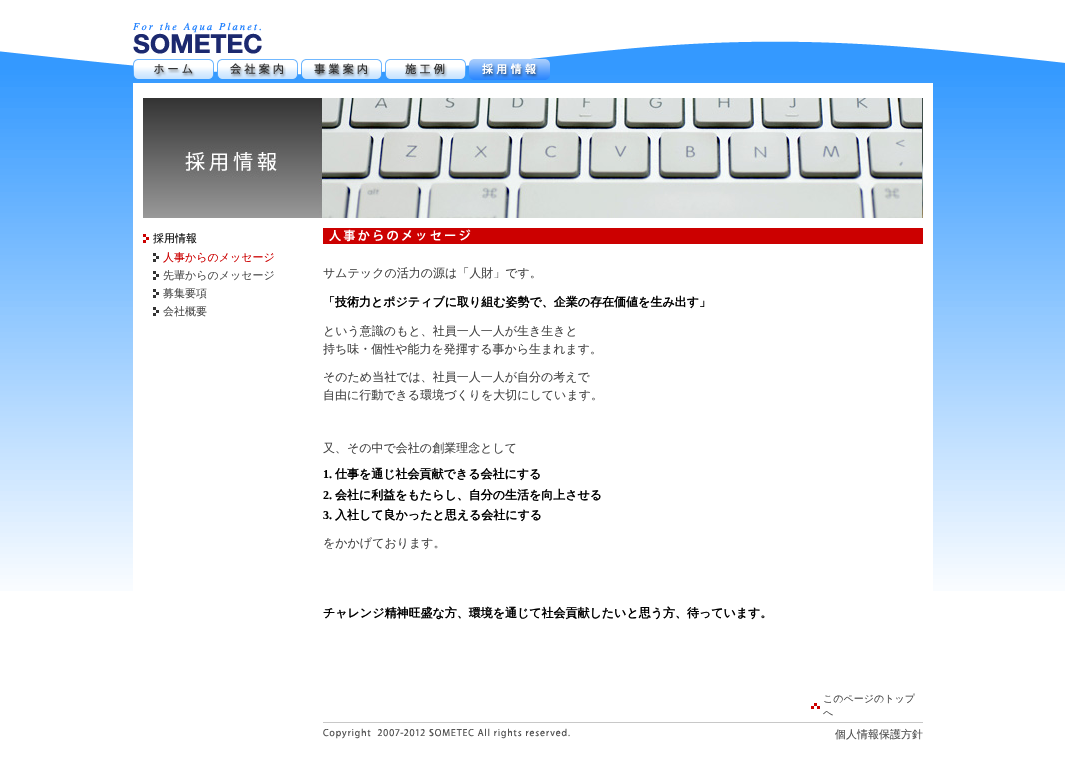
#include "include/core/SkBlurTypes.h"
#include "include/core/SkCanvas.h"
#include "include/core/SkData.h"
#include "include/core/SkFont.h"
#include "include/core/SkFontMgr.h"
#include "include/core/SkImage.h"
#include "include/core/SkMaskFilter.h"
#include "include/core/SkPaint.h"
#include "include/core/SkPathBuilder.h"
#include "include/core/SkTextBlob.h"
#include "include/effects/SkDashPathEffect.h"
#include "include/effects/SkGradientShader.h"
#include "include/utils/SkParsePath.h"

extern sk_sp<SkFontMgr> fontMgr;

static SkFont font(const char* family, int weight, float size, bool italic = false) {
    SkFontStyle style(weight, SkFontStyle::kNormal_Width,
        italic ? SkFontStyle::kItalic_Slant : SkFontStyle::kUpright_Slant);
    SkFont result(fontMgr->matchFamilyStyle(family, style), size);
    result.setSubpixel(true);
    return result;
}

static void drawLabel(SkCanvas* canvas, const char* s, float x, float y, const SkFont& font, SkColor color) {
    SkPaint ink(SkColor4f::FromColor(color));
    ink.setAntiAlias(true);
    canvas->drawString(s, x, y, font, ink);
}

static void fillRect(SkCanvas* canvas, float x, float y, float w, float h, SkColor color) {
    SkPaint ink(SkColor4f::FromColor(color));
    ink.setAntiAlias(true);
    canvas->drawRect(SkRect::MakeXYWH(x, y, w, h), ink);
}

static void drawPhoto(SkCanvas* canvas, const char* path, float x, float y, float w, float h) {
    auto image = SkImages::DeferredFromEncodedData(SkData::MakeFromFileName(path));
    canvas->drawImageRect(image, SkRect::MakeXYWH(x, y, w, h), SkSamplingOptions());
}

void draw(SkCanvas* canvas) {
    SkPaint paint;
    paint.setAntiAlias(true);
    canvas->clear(0xFFFFFFFF);
    drawPhoto(canvas, "assets/img1.png", 0, 41, 1065, 550);
    drawPhoto(canvas, "assets/img2.png", 133, 22, 129, 32);
    drawPhoto(canvas, "assets/img3.png", 133, 59, 81, 21);
    drawPhoto(canvas, "assets/img4.png", 217, 59, 81, 21);
    drawPhoto(canvas, "assets/img5.png", 301, 59, 81, 21);
    drawPhoto(canvas, "assets/img6.png", 385, 59, 81, 21);
    drawPhoto(canvas, "assets/img7.png", 469, 59, 81, 21);
    fillRect(canvas, 133, 83, 800, 508, 0xFFFFFFFF);
    drawPhoto(canvas, "assets/img8.png", 143, 98, 780, 120);
    drawPhoto(canvas, "assets/img9.png", 143, 234, 6, 9);
    SkFont font1 = font("WenQuanYi Zen Hei", 500, 11);
    drawLabel(canvas, "採用情報", 153, 242, font1, 0xFF000000);
    drawPhoto(canvas, "assets/img10.png", 153, 253, 6, 9);
    drawLabel(canvas, "人事からのメッセージ", 163, 261, font1, 0xFFCC0000);
    drawPhoto(canvas, "assets/img10.png", 153, 271, 6, 9);
    drawLabel(canvas, "先輩からのメッセージ", 163, 279, font1, 0xFF4D4D4D);
    drawPhoto(canvas, "assets/img10.png", 153, 289, 6, 9);
    drawLabel(canvas, "募集要項", 163, 297, font1, 0xFF4D4D4D);
    drawPhoto(canvas, "assets/img10.png", 153, 307, 6, 9);
    drawLabel(canvas, "会社概要", 163, 315, font1, 0xFF4D4D4D);
    drawPhoto(canvas, "assets/img11.png", 323, 228, 600, 16);
    SkFont font2 = font("WenQuanYi Zen Hei", 500, 12);
    drawLabel(canvas, "サムテックの活力の源は「人財」です。", 323, 277, font2, 0xFF454545);
    SkFont font3 = font("WenQuanYi Zen Hei", 700, 12);
    drawLabel(canvas, "「技術力とポジティブに取り組む姿勢で、企業の存在価値を生み出す」", 323, 306, font3, 0xFF000000);
    drawLabel(canvas, "という意識のもと、社員一人一人が生き生きと", 323, 335, font2, 0xFF454545);
    drawLabel(canvas, "持ち味・個性や能力を発揮する事から生まれます。", 323, 353, font2, 0xFF454545);
    drawLabel(canvas, "そのため当社では、社員一人一人が自分の考えで", 323, 381, font2, 0xFF454545);
    drawLabel(canvas, "自由に行動できる環境づくりを大切にしています。", 323, 399, font2, 0xFF454545);
    drawLabel(canvas, "又、その中で会社の創業理念として", 323, 452, font2, 0xFF454545);
    SkFont font4 = font("Liberation Serif", 700, 12);
    drawLabel(canvas, "1.", 323, 478, font4, 0xFF000000);
    drawLabel(canvas, "仕事を通じ社会貢献できる会社にする", 335, 478, font3, 0xFF000000);
    drawLabel(canvas, "2.", 323, 499, font4, 0xFF000000);
    drawLabel(canvas, "会社に利益をもたらし、自分の生活を向上させる", 335, 499, font3, 0xFF000000);
    drawLabel(canvas, "3.", 323, 519, font4, 0xFF000000);
    drawLabel(canvas, "入社して良かったと思える会社にする", 335, 519, font3, 0xFF000000);
    drawLabel(canvas, "をかかげております。", 323, 547, font2, 0xFF454545);
    drawLabel(canvas, "チャレンジ精神旺盛な方、環境を通じて社会貢献したいと思う方、待っています。", 323, 617, font3, 0xFF000000);
    drawPhoto(canvas, "assets/img12.png", 811, 703, 9, 6);
    SkFont font5 = font("WenQuanYi Zen Hei", 500, 10);
    drawLabel(canvas, "このページのトップ", 823, 702, font5, 0xFF4D4D4D);
    drawLabel(canvas, "へ", 823, 716, font5, 0xFF4D4D4D);
    fillRect(canvas, 323, 722, 600, 1, 0xFFC8C8C8);
    drawPhoto(canvas, "assets/img13.png", 323, 728, 247, 11);
    drawLabel(canvas, "個人情報保護方針", 835, 738, font1, 0xFF4D4D4D);
}
